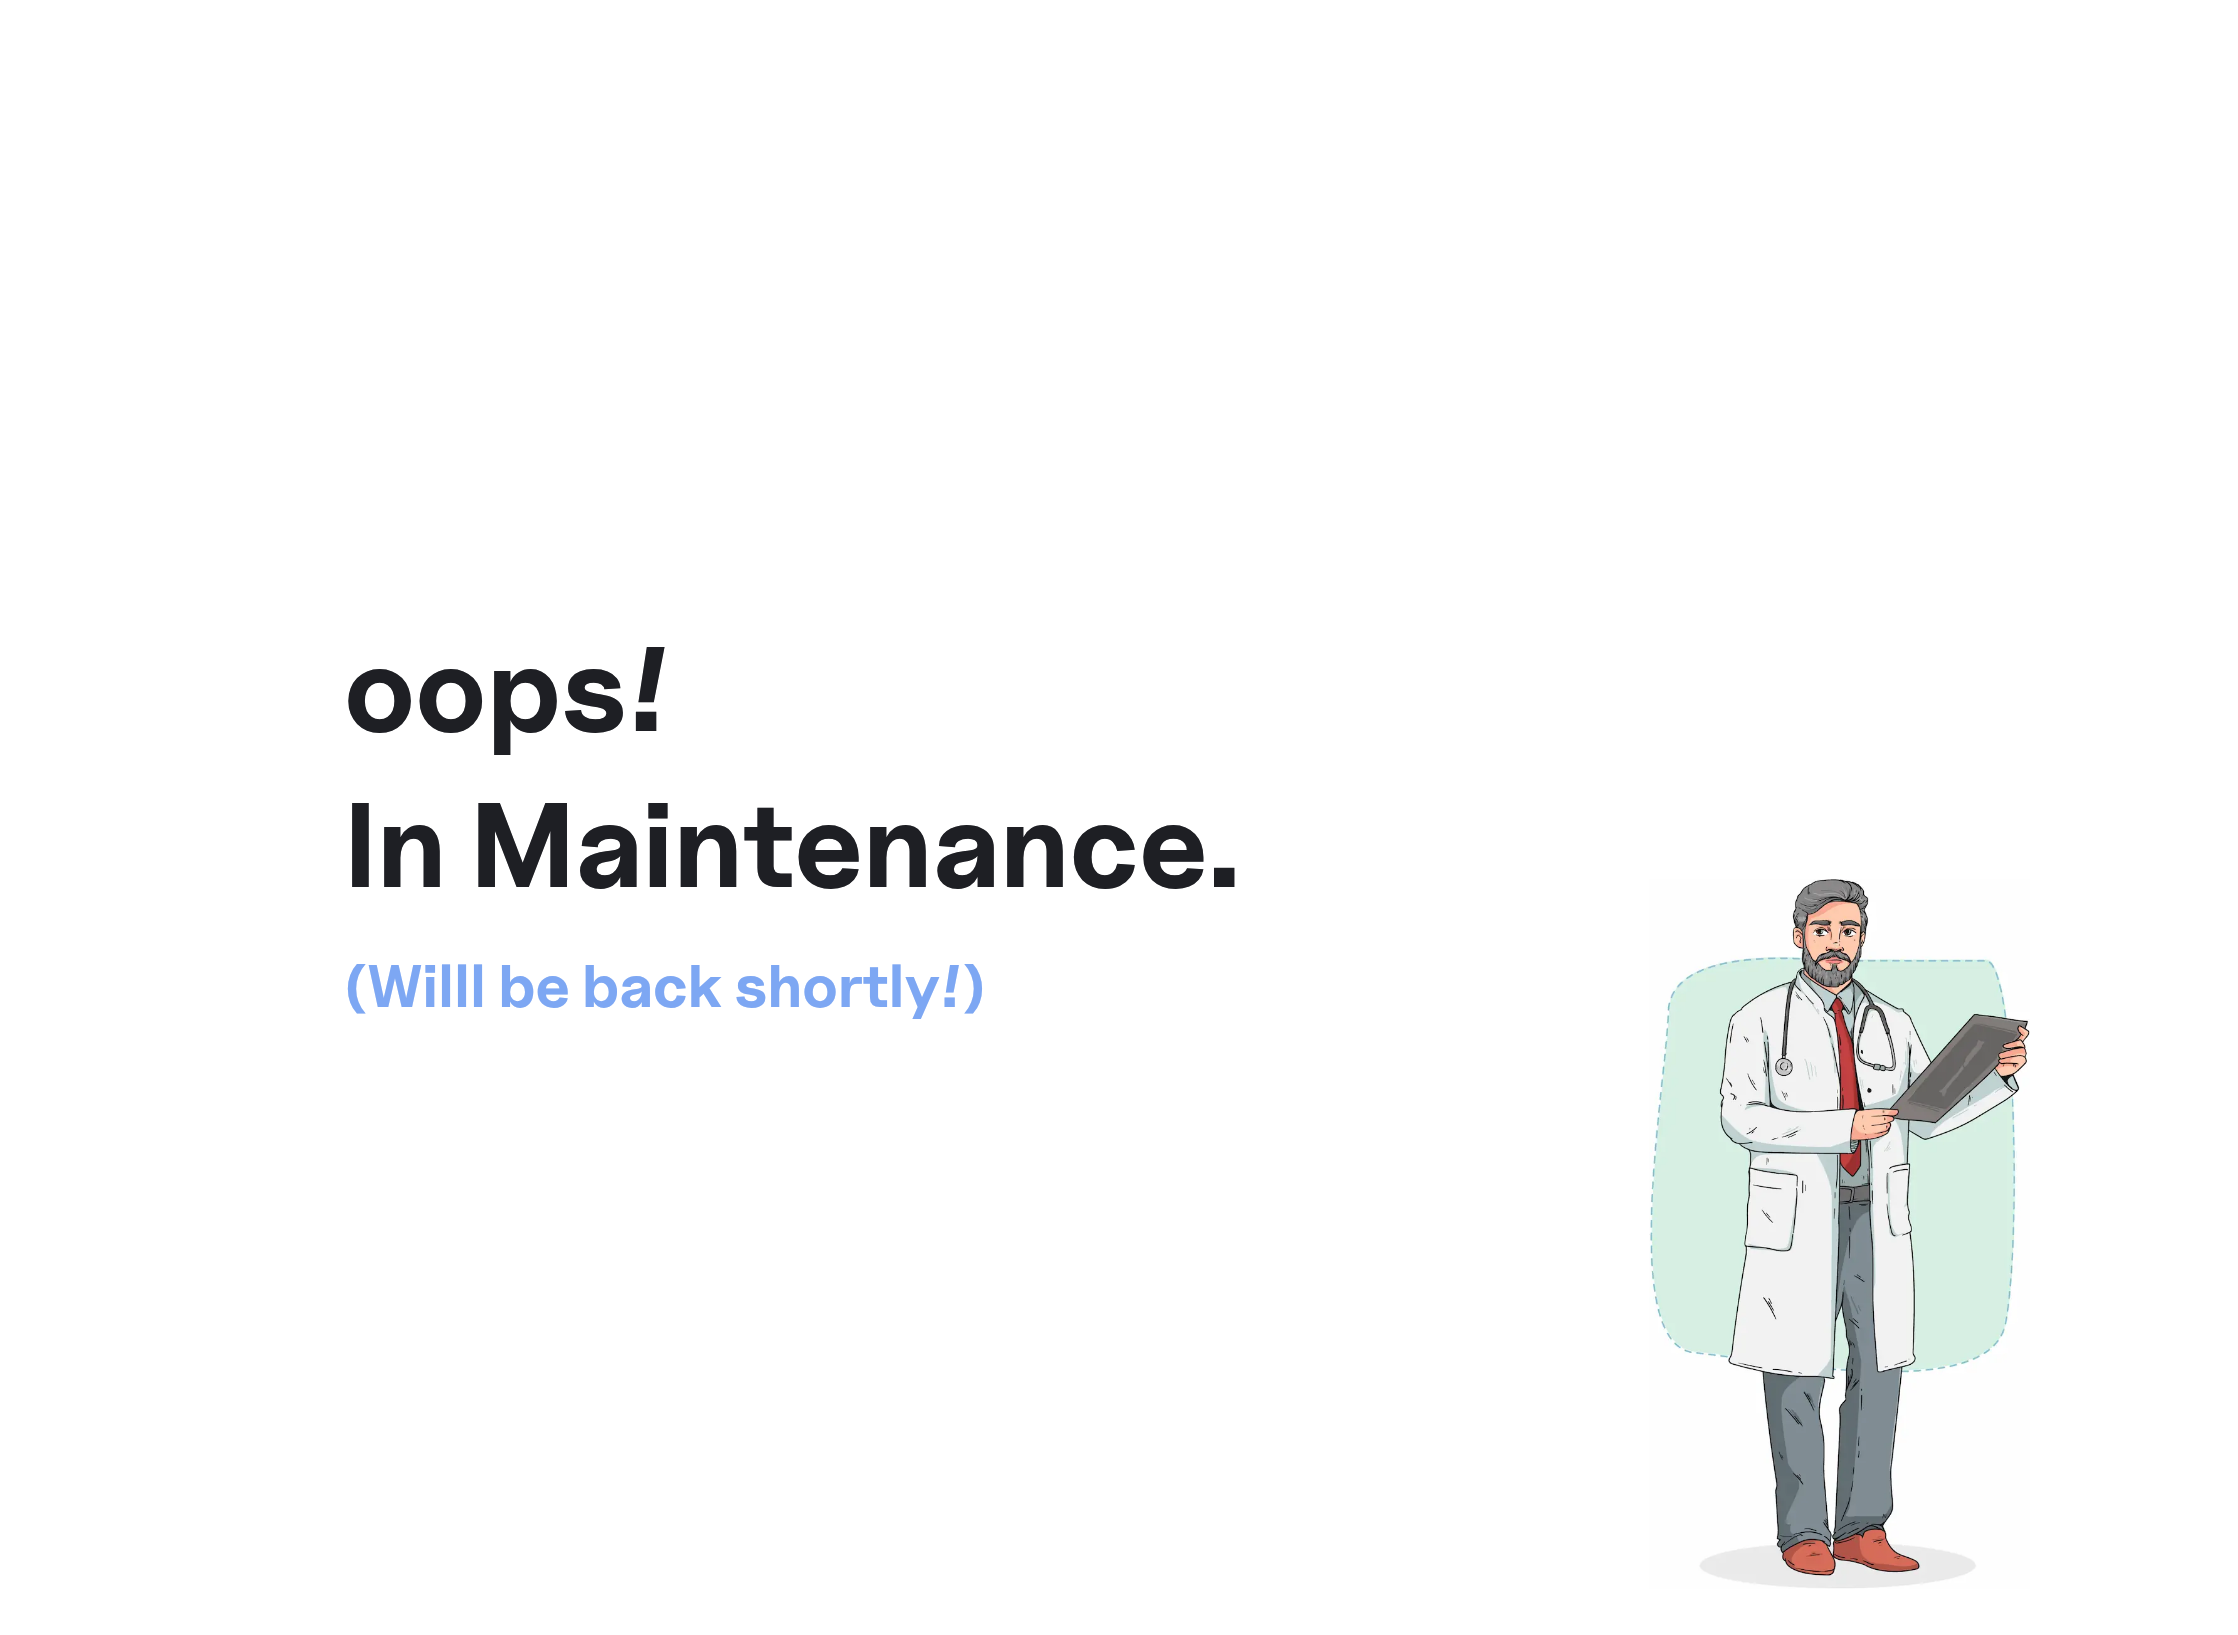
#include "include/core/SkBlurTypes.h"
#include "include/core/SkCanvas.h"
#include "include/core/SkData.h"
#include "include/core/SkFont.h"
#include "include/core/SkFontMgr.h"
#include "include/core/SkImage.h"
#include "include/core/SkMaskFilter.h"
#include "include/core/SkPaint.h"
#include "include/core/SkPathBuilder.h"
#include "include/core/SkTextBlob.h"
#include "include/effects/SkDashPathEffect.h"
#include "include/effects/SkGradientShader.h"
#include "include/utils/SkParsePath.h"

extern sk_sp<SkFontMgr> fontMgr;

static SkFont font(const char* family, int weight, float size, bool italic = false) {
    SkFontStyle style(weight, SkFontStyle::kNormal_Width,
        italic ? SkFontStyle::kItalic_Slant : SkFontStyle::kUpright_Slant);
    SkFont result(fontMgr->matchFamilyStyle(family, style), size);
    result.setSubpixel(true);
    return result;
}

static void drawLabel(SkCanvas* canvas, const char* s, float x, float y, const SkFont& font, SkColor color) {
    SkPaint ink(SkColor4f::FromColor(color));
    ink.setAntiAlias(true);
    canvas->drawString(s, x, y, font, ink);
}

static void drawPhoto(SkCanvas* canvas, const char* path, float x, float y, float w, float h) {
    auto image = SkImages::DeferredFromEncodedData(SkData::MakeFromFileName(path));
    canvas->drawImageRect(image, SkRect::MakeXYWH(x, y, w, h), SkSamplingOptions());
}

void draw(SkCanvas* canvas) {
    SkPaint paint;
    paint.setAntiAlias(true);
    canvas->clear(0xFFFFFFFF);
    drawPhoto(canvas, "assets/img1.png", 1649, 879, 381, 710);
    SkFont font1 = font("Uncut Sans", 700, 120);
    drawLabel(canvas, "oops!", 344, 731, font1, 0xFF1E1F24);
    drawLabel(canvas, "In Maintenance.", 344, 887, font1, 0xFF1E1F24);
    SkFont font2 = font("Uncut Sans", 700, 60);
    drawLabel(canvas, "(Willl be back shortly!)", 344, 1007, font2, 0xFF7DA7F3);
}
